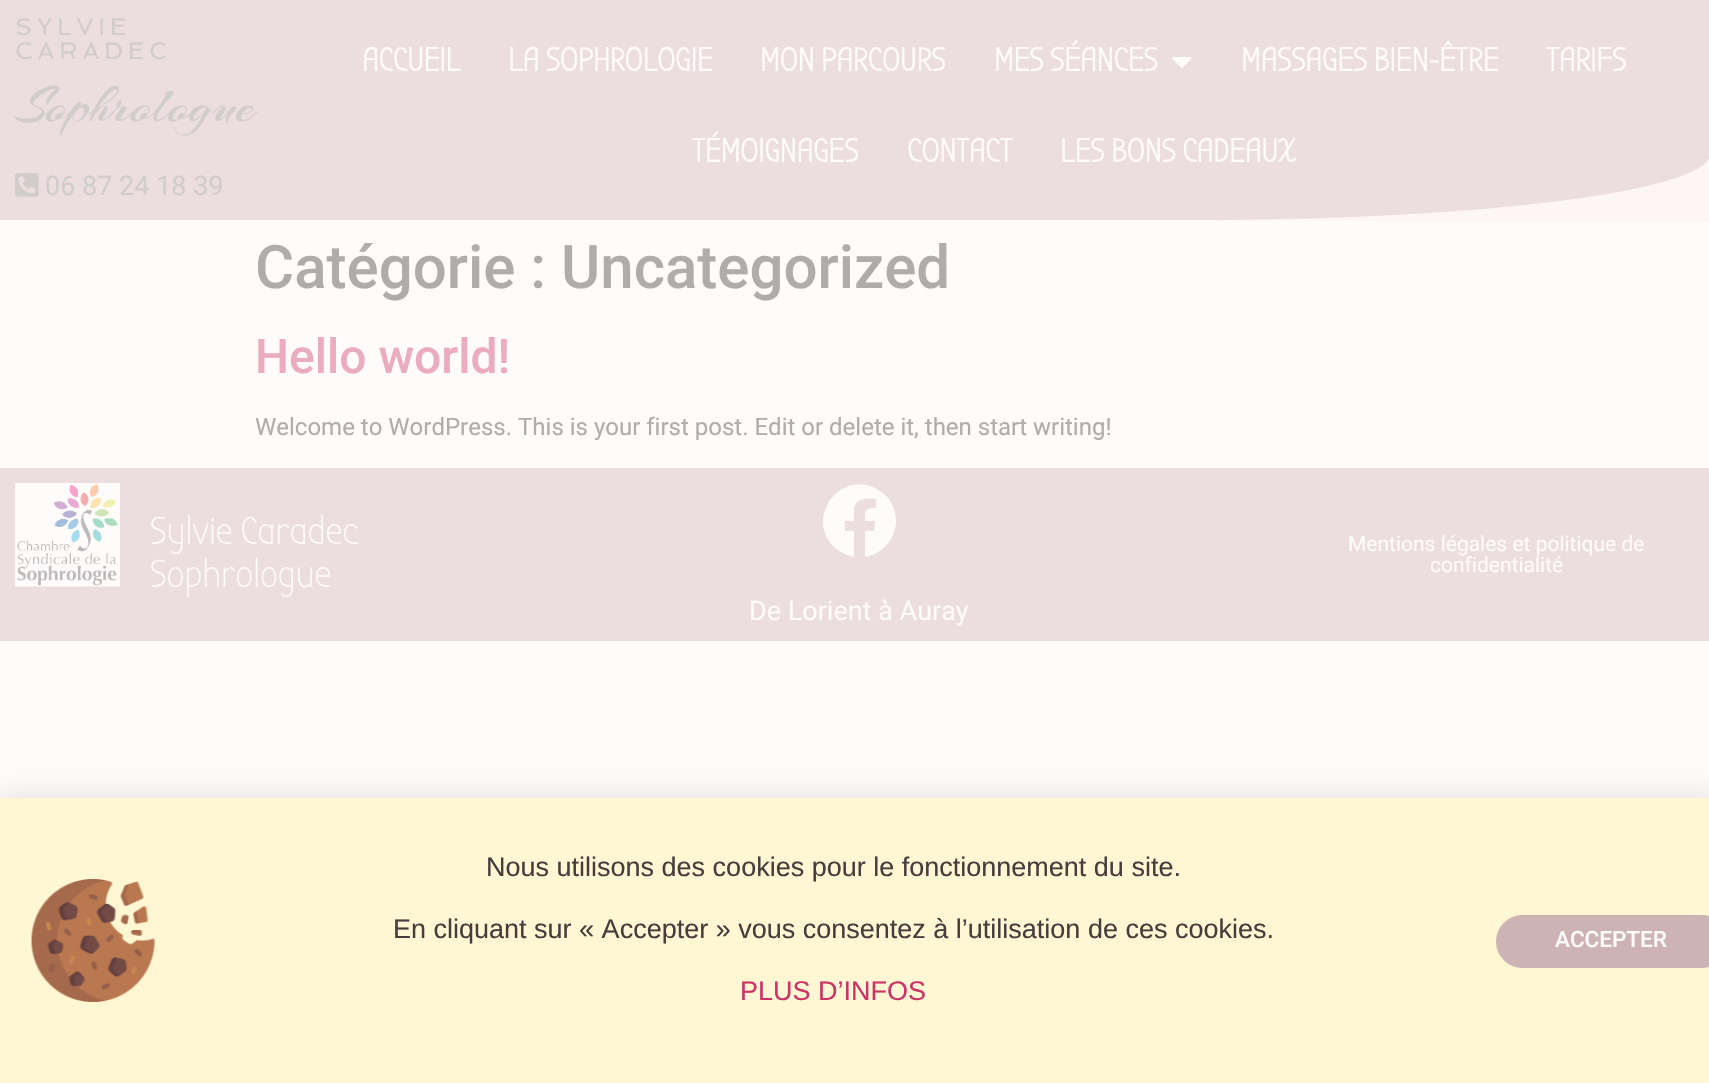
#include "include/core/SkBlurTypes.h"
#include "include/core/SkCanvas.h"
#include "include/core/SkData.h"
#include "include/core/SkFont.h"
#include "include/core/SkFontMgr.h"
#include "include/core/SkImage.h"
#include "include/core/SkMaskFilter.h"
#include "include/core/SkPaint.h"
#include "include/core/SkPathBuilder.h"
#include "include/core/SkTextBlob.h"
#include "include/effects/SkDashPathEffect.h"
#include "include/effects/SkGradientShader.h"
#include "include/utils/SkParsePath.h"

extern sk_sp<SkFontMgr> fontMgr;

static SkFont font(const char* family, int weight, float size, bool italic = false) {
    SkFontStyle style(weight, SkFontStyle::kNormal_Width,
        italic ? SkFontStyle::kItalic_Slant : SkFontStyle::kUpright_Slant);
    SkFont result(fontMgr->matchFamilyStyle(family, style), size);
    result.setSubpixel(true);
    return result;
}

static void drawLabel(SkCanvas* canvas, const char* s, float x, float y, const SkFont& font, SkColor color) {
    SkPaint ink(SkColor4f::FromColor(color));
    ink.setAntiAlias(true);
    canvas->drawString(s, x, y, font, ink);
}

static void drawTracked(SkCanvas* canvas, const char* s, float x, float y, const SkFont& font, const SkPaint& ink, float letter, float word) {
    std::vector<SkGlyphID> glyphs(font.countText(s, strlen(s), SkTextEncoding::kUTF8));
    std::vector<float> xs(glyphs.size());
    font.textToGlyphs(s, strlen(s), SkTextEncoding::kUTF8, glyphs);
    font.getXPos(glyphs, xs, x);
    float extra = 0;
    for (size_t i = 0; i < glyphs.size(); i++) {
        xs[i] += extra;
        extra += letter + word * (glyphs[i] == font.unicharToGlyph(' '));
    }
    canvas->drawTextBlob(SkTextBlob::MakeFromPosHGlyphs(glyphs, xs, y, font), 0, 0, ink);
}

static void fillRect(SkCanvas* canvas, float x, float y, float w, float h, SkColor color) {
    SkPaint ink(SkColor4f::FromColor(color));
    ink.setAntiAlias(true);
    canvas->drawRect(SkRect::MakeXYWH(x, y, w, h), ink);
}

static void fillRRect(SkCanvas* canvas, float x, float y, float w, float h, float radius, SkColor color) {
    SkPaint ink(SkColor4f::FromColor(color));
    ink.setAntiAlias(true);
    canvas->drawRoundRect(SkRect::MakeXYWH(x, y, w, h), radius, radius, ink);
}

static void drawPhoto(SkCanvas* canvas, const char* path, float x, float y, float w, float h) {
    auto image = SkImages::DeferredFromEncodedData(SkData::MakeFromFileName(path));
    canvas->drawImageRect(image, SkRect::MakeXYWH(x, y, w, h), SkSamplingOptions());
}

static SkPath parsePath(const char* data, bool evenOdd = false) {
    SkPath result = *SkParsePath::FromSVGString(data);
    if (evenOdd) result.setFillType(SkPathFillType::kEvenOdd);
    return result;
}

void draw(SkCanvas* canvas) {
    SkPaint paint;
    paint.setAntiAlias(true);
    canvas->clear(0xFFFFFBFB);
    fillRect(canvas, 0, 158, 1709, 63, 0xFFFCF7F5);
    paint.setColor(0xFFECDEDE);
    canvas->drawPath(parsePath("M0 0H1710V154C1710 191 1480 220 1197 220H0Z"), paint);
    SkFont font1 = font("Spinnaker", 400, 24);
    paint.setColor(0xFFD1CDC9);
    drawTracked(canvas, "SYLVIE", 15, 35, font1, paint, 5, 0);
    drawTracked(canvas, "CARADEC", 15, 59, font1, paint, 5, 0);
    SkFont font2 = font("Arizonia", 400, 54);
    drawLabel(canvas, "Sophrologue", 15, 121, font2, 0xFFD1CDC9);
    drawPhoto(canvas, "assets/img1.png", 15, 173, 24, 24);
    SkFont font3 = font("Roboto", 400, 27);
    drawLabel(canvas, "06 87 24 18 39", 45, 195, font3, 0xFFD1CDC9);
    SkFont font4 = font("Bubbler One", 700, 33);
    drawLabel(canvas, "ACCUEIL", 362, 71, font4, 0xFFFFFBFB);
    drawLabel(canvas, "LA SOPHROLOGIE", 508, 71, font4, 0xFFFFFBFB);
    drawLabel(canvas, "MON PARCOURS", 760, 71, font4, 0xFFFFFBFB);
    drawLabel(canvas, "MES SÉANCES", 994, 71, font4, 0xFFFFFBFB);
    drawPhoto(canvas, "assets/img2.png", 1172, 57, 20, 11);
    drawLabel(canvas, "MASSAGES BIEN-ÊTRE", 1241, 71, font4, 0xFFFFFBFB);
    drawLabel(canvas, "TARIFS", 1546, 71, font4, 0xFFFFFBFB);
    drawLabel(canvas, "TÉMOIGNAGES", 692, 162, font4, 0xFFFFFBFB);
    drawLabel(canvas, "CONTACT", 907, 162, font4, 0xFFFFFBFB);
    drawLabel(canvas, "LES BONS CADEAUX", 1060, 162, font4, 0xFFFFFBFB);
    SkFont font5 = font("Roboto", 500, 60);
    drawLabel(canvas, "Catégorie : Uncategorized", 255, 288, font5, 0xFFAFACAC);
    SkFont font6 = font("Roboto", 500, 48);
    drawLabel(canvas, "Hello world!", 255, 373, font6, 0xFFEBACC0);
    SkFont font7 = font("Roboto", 400, 24);
    drawLabel(canvas, "Welcome to WordPress. This is your first post. Edit or delete it, then start writing!", 255, 435, font7, 0xFFAFACAC);
    fillRect(canvas, 0, 468, 1709, 173, 0xFFECDEDE);
    drawPhoto(canvas, "assets/img3.png", 15, 483, 105, 104);
    SkFont font8 = font("Bubbler One", 400, 39);
    drawLabel(canvas, "Sylvie Caradec", 150, 544, font8, 0xFFFFFBFB);
    drawLabel(canvas, "Sophrologue", 150, 587, font8, 0xFFFFFBFB);
    SkFont font9 = font("Roboto", 400, 21);
    drawLabel(canvas, "Mentions légales et politique de", 1348, 551, font9, 0xFFFFFBFB);
    drawLabel(canvas, "confidentialité", 1430, 572, font9, 0xFFFFFBFB);
    paint.setColor(0xFFFFFBFB);
    canvas->drawPath(parsePath("M896 521C896 538 883 554 865 557V531H874L875 521H865C865 510 864 508 876 508V499C867 498 857 498 854 508V521H845V531H854V557C845 555 838 551 832 545C805 513 845 467 880 491C890 497 896 509 896 521Z"), paint);
    drawLabel(canvas, "De Lorient à Auray", 749, 620, font3, 0xFFFFFBFB);
    paint.setColor(0x33000000);
    paint.setMaskFilter(SkMaskFilter::MakeBlur(kNormal_SkBlurStyle, 17));
    canvas->drawRect(SkRect::MakeXYWH(-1, 806, 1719, 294), paint);
    paint.setMaskFilter(nullptr);
    fillRect(canvas, 0, 798, 1709, 285, 0xFFFFF7D3);
    drawPhoto(canvas, "assets/img4.png", 31, 879, 124, 123);
    SkFont font10 = font("Liberation Sans", 400, 27);
    drawLabel(canvas, "Nous utilisons des cookies pour le fonctionnement du site.", 486, 876, font10, 0xFF473D3D);
    drawLabel(canvas, "En cliquant sur « Accepter » vous consentez à l’utilisation de ces cookies.", 393, 938, font10, 0xFF473D3D);
    drawLabel(canvas, "PLUS D’INFOS", 740, 1000, font10, 0xFFCC3366);
    fillRRect(canvas, 1496, 915, 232, 53, 26.5f, 0xFFCDB3B3);
    SkFont font11 = font("Roboto", 500, 22.5f);
    drawLabel(canvas, "ACCEPTER", 1555, 947, font11, 0xFFFFFBFB);
}
